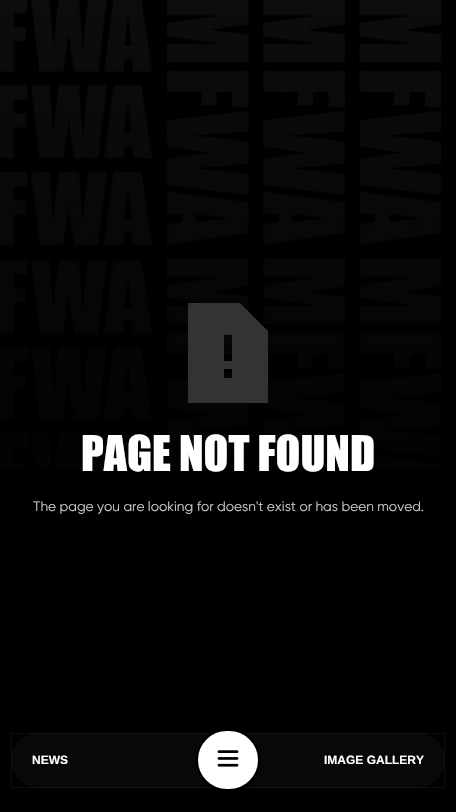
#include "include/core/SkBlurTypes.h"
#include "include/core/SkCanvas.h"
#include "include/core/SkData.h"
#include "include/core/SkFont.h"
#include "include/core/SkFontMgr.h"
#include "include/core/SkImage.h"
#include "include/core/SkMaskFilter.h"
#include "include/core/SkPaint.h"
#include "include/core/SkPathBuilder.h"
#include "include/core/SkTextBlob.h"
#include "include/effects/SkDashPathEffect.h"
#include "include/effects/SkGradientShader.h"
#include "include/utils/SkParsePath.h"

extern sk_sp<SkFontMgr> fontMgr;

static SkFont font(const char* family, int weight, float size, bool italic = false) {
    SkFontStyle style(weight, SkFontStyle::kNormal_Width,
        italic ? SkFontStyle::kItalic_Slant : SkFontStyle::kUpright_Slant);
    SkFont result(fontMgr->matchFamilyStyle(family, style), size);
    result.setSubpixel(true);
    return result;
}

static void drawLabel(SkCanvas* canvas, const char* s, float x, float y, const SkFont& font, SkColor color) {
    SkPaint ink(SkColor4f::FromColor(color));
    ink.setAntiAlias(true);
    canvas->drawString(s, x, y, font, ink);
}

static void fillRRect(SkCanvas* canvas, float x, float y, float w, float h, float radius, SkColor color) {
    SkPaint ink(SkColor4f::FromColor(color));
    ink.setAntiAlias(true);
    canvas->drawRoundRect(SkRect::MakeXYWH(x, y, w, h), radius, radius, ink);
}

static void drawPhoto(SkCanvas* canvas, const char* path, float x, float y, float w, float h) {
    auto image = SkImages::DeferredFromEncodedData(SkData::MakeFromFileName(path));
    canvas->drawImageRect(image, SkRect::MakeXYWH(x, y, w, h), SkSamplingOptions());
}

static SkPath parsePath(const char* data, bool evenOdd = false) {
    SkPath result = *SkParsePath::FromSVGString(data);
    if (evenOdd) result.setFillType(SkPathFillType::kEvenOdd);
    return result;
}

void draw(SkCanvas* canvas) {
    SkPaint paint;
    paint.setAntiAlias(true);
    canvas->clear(0xFF000000);
    drawPhoto(canvas, "assets/img1.png", 0, 0, 442, 468);
    paint.setColor(0xFF333333);
    canvas->drawPath(parsePath("M188 303H240L268 331V403H188ZM224 335H232V361H224ZM224 369H232V378H224Z", true), paint);
    SkFont font1 = font("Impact", 400, 45.5f);
    drawLabel(canvas, "PAGE NOT FOUND", 81, 471, font1, 0xFFFFFFFF);
    SkFont font2 = font("Gilroy", 400, 13.7f);
    drawLabel(canvas, "The page you are looking for doesn't exist or has been moved.", 33, 511, font2, 0xFFCCCCCC);
    fillRRect(canvas, 11, 733, 434, 55, 27.5f, 0xFF080808);
    paint.setStroke(true);
    paint.setStrokeWidth(1);
    paint.setColor(0x0DFFFFFF);
    canvas->drawRect(SkRect::MakeXYWH(11.5f, 733.5f, 433, 54), paint);
    SkFont font3 = font("Liberation Sans", 700, 12);
    drawLabel(canvas, "NEWS", 32, 764, font3, 0xFFFFFFFF);
    paint.setStroke(false);
    paint.setColor(0xFFFFFFFF);
    canvas->drawRoundRect(SkRect::MakeXYWH(196.5f, 729.5f, 63, 61), 30.5f, 30.5f, paint);
    paint.setStroke(true);
    paint.setStrokeWidth(3);
    paint.setColor(0xFF000000);
    canvas->drawRoundRect(SkRect::MakeXYWH(196.5f, 729.5f, 63, 61), 30.5f, 30.5f, paint);
    drawPhoto(canvas, "assets/img2.png", 217, 750, 22, 17);
    drawLabel(canvas, "IMAGE GALLERY", 324, 764, font3, 0xFFFFFFFF);
}
